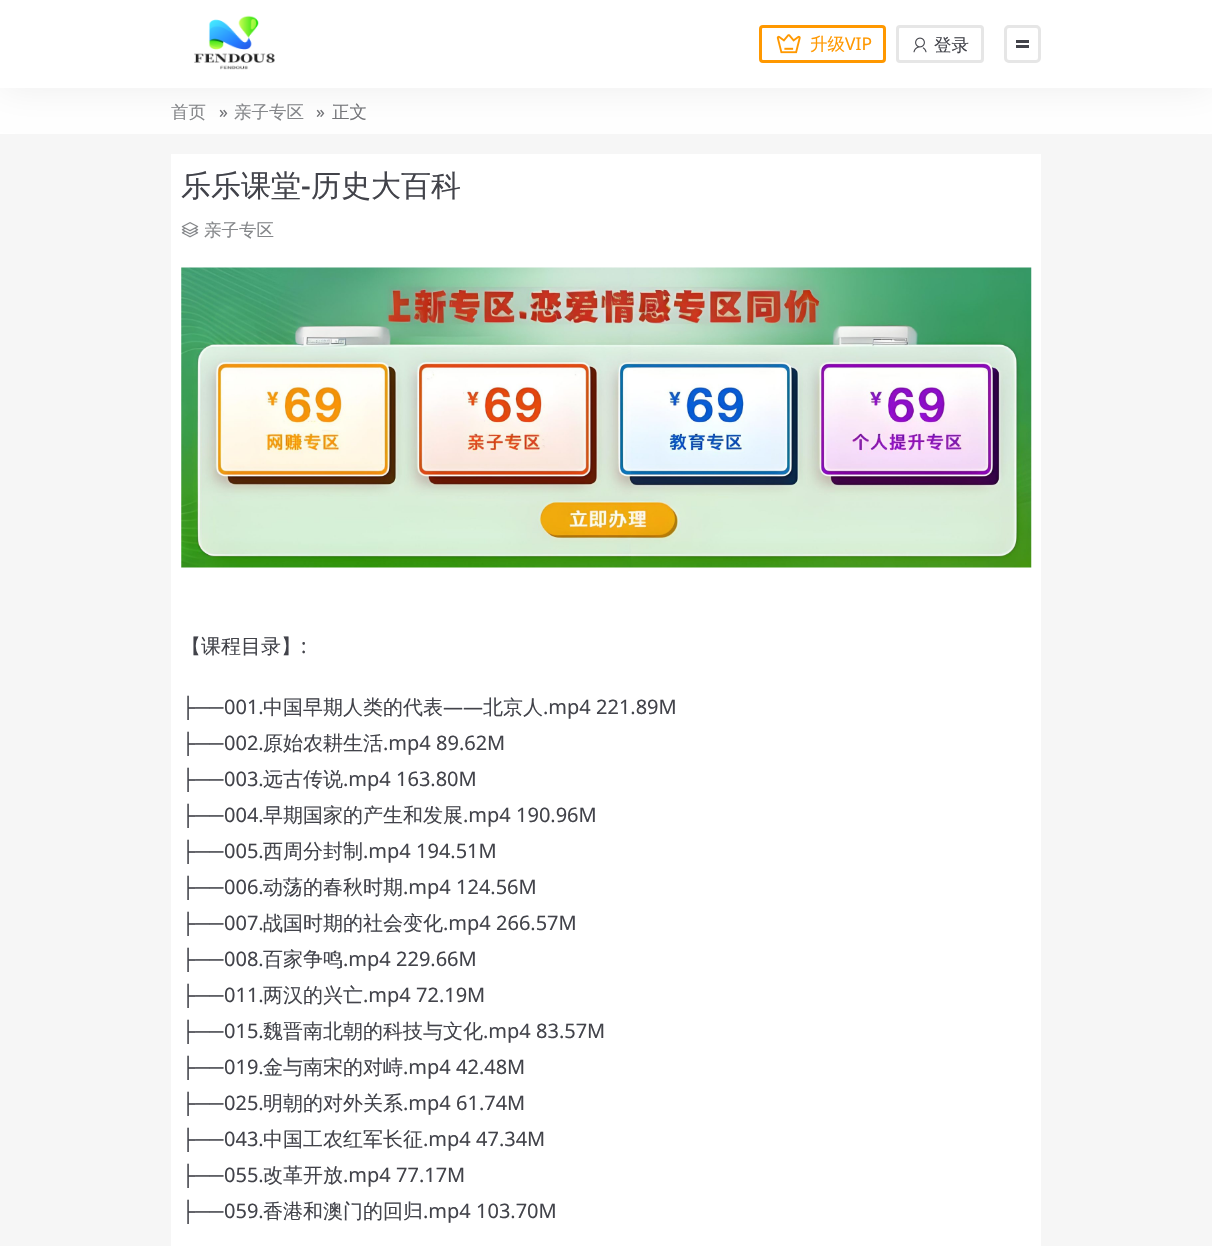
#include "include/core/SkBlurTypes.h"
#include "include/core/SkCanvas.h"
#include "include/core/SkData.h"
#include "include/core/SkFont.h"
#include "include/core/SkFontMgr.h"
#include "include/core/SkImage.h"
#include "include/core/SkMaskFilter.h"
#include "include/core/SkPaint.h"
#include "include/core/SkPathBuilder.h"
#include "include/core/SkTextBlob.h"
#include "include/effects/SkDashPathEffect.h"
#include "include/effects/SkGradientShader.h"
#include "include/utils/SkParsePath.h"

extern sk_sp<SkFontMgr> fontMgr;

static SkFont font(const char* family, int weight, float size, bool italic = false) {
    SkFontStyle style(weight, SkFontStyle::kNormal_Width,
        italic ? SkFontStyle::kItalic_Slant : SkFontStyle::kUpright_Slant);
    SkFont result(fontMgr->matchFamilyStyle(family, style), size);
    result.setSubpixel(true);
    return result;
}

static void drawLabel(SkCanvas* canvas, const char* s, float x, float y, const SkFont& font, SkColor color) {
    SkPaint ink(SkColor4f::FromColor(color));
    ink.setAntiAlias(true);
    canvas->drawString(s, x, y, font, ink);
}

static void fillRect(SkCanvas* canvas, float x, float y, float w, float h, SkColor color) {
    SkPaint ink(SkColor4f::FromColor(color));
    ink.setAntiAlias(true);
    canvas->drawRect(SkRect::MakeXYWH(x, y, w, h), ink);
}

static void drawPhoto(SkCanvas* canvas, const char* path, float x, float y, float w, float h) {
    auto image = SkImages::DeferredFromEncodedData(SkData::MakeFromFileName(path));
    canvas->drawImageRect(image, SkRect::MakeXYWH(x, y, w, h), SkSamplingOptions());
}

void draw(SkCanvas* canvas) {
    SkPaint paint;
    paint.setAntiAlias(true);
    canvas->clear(0xFFF6F6F6);
    fillRect(canvas, 0, 88, 1212, 46, 0xFFFFFFFF);
    paint.setColor(0x12000000);
    paint.setMaskFilter(SkMaskFilter::MakeBlur(kNormal_SkBlurStyle, 19));
    canvas->drawRect(SkRect::MakeXYWH(0, 0, 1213, 88), paint);
    paint.setMaskFilter(nullptr);
    fillRect(canvas, 0, 0, 1212, 88, 0xFFFFFFFF);
    drawPhoto(canvas, "assets/img1.png", 194, 15, 81, 55);
    paint.setStroke(true);
    paint.setStrokeWidth(3);
    paint.setColor(0xFFFF9800);
    canvas->drawRoundRect(SkRect::MakeXYWH(760.5f, 26.5f, 124, 35), 2.5f, 2.5f, paint);
    drawPhoto(canvas, "assets/img2.png", 776, 34, 25, 20);
    SkFont font1 = font("WenQuanYi Zen Hei", 500, 17.5f);
    drawLabel(canvas, "升级", 810, 50, font1, 0xFFFF9800);
    SkFont font2 = font("Noto Sans", 400, 17.5f);
    drawLabel(canvas, "VIP", 845, 50, font2, 0xFFFF9800);
    paint.setColor(0xFFE6E6E6);
    canvas->drawRoundRect(SkRect::MakeXYWH(897.5f, 26.5f, 85, 35), 2.5f, 2.5f, paint);
    drawPhoto(canvas, "assets/img3.png", 913, 37, 14, 16);
    drawLabel(canvas, "登录", 934, 51, font1, 0xFF42434A);
    canvas->drawRoundRect(SkRect::MakeXYWH(1005.5f, 26.5f, 34, 35), 3.5f, 3.5f, paint);
    fillRect(canvas, 1016, 40, 13, 3, 0xFF42434A);
    fillRect(canvas, 1016, 45, 13, 3, 0xFF42434A);
    drawLabel(canvas, "首页", 171, 118, font1, 0xFF85878A);
    drawLabel(canvas, "»", 219, 118, font2, 0xFF747579);
    drawLabel(canvas, "亲子专区", 234, 118, font1, 0xFF85878A);
    drawLabel(canvas, "»", 316, 118, font2, 0xFF747579);
    drawLabel(canvas, "正文", 332, 118, font1, 0xFF747579);
    fillRect(canvas, 171, 154, 870, 1092, 0xFFFFFFFF);
    SkFont font3 = font("WenQuanYi Zen Hei", 500, 30);
    drawLabel(canvas, "乐乐课堂", 181, 196, font3, 0xFF42434A);
    SkFont font4 = font("Noto Sans", 500, 30);
    drawLabel(canvas, "-", 301, 196, font4, 0xFF42434A);
    drawLabel(canvas, "历史大百科", 311, 196, font3, 0xFF42434A);
    drawPhoto(canvas, "assets/img4.png", 181, 222, 18, 16);
    drawLabel(canvas, "亲子专区", 204, 236, font1, 0xFF85878A);
    drawPhoto(canvas, "assets/img5.png", 181, 267, 851, 301);
    SkFont font5 = font("WenQuanYi Zen Hei", 500, 20);
    drawLabel(canvas, "【课程目录】", 181, 653, font5, 0xFF42434A);
    SkFont font6 = font("Noto Sans", 400, 20);
    drawLabel(canvas, ":", 301, 653, font6, 0xFF42434A);
    SkFont font7 = font("Liberation Sans", 400, 20);
    drawLabel(canvas, "├──", 181, 714, font7, 0xFF42434A);
    drawLabel(canvas, "001.", 224, 714, font6, 0xFF42434A);
    drawLabel(canvas, "中国早期人类的代表", 263, 714, font5, 0xFF42434A);
    drawLabel(canvas, "——", 443, 714, font6, 0xFF42434A);
    drawLabel(canvas, "北京人", 483, 714, font5, 0xFF42434A);
    drawLabel(canvas, ".mp4 221.89M", 543, 714, font6, 0xFF42434A);
    drawLabel(canvas, "├──", 181, 750, font7, 0xFF42434A);
    drawLabel(canvas, "002.", 224, 750, font6, 0xFF42434A);
    drawLabel(canvas, "原始农耕生活", 263, 750, font5, 0xFF42434A);
    drawLabel(canvas, ".mp4 89.62M", 383, 750, font6, 0xFF42434A);
    drawLabel(canvas, "├──", 181, 786, font7, 0xFF42434A);
    drawLabel(canvas, "003.", 224, 786, font6, 0xFF42434A);
    drawLabel(canvas, "远古传说", 263, 786, font5, 0xFF42434A);
    drawLabel(canvas, ".mp4 163.80M", 343, 786, font6, 0xFF42434A);
    drawLabel(canvas, "├──", 181, 822, font7, 0xFF42434A);
    drawLabel(canvas, "004.", 224, 822, font6, 0xFF42434A);
    drawLabel(canvas, "早期国家的产生和发展", 263, 822, font5, 0xFF42434A);
    drawLabel(canvas, ".mp4 190.96M", 463, 822, font6, 0xFF42434A);
    drawLabel(canvas, "├──", 181, 858, font7, 0xFF42434A);
    drawLabel(canvas, "005.", 224, 858, font6, 0xFF42434A);
    drawLabel(canvas, "西周分封制", 263, 858, font5, 0xFF42434A);
    drawLabel(canvas, ".mp4 194.51M", 363, 858, font6, 0xFF42434A);
    drawLabel(canvas, "├──", 181, 894, font7, 0xFF42434A);
    drawLabel(canvas, "006.", 224, 894, font6, 0xFF42434A);
    drawLabel(canvas, "动荡的春秋时期", 263, 894, font5, 0xFF42434A);
    drawLabel(canvas, ".mp4 124.56M", 403, 894, font6, 0xFF42434A);
    drawLabel(canvas, "├──", 181, 930, font7, 0xFF42434A);
    drawLabel(canvas, "007.", 224, 930, font6, 0xFF42434A);
    drawLabel(canvas, "战国时期的社会变化", 263, 930, font5, 0xFF42434A);
    drawLabel(canvas, ".mp4 266.57M", 443, 930, font6, 0xFF42434A);
    drawLabel(canvas, "├──", 181, 966, font7, 0xFF42434A);
    drawLabel(canvas, "008.", 224, 966, font6, 0xFF42434A);
    drawLabel(canvas, "百家争鸣", 263, 966, font5, 0xFF42434A);
    drawLabel(canvas, ".mp4 229.66M", 343, 966, font6, 0xFF42434A);
    drawLabel(canvas, "├──", 181, 1002, font7, 0xFF42434A);
    drawLabel(canvas, "011.", 224, 1002, font6, 0xFF42434A);
    drawLabel(canvas, "两汉的兴亡", 263, 1002, font5, 0xFF42434A);
    drawLabel(canvas, ".mp4 72.19M", 363, 1002, font6, 0xFF42434A);
    drawLabel(canvas, "├──", 181, 1038, font7, 0xFF42434A);
    drawLabel(canvas, "015.", 224, 1038, font6, 0xFF42434A);
    drawLabel(canvas, "魏晋南北朝的科技与文化", 263, 1038, font5, 0xFF42434A);
    drawLabel(canvas, ".mp4 83.57M", 483, 1038, font6, 0xFF42434A);
    drawLabel(canvas, "├──", 181, 1074, font7, 0xFF42434A);
    drawLabel(canvas, "019.", 224, 1074, font6, 0xFF42434A);
    drawLabel(canvas, "金与南宋的对峙", 263, 1074, font5, 0xFF42434A);
    drawLabel(canvas, ".mp4 42.48M", 403, 1074, font6, 0xFF42434A);
    drawLabel(canvas, "├──", 181, 1110, font7, 0xFF42434A);
    drawLabel(canvas, "025.", 224, 1110, font6, 0xFF42434A);
    drawLabel(canvas, "明朝的对外关系", 263, 1110, font5, 0xFF42434A);
    drawLabel(canvas, ".mp4 61.74M", 403, 1110, font6, 0xFF42434A);
    drawLabel(canvas, "├──", 181, 1146, font7, 0xFF42434A);
    drawLabel(canvas, "043.", 224, 1146, font6, 0xFF42434A);
    drawLabel(canvas, "中国工农红军长征", 263, 1146, font5, 0xFF42434A);
    drawLabel(canvas, ".mp4 47.34M", 423, 1146, font6, 0xFF42434A);
    drawLabel(canvas, "├──", 181, 1182, font7, 0xFF42434A);
    drawLabel(canvas, "055.", 224, 1182, font6, 0xFF42434A);
    drawLabel(canvas, "改革开放", 263, 1182, font5, 0xFF42434A);
    drawLabel(canvas, ".mp4 77.17M", 343, 1182, font6, 0xFF42434A);
    drawLabel(canvas, "├──", 181, 1218, font7, 0xFF42434A);
    drawLabel(canvas, "059.", 224, 1218, font6, 0xFF42434A);
    drawLabel(canvas, "香港和澳门的回归", 263, 1218, font5, 0xFF42434A);
    drawLabel(canvas, ".mp4 103.70M", 423, 1218, font6, 0xFF42434A);
}
